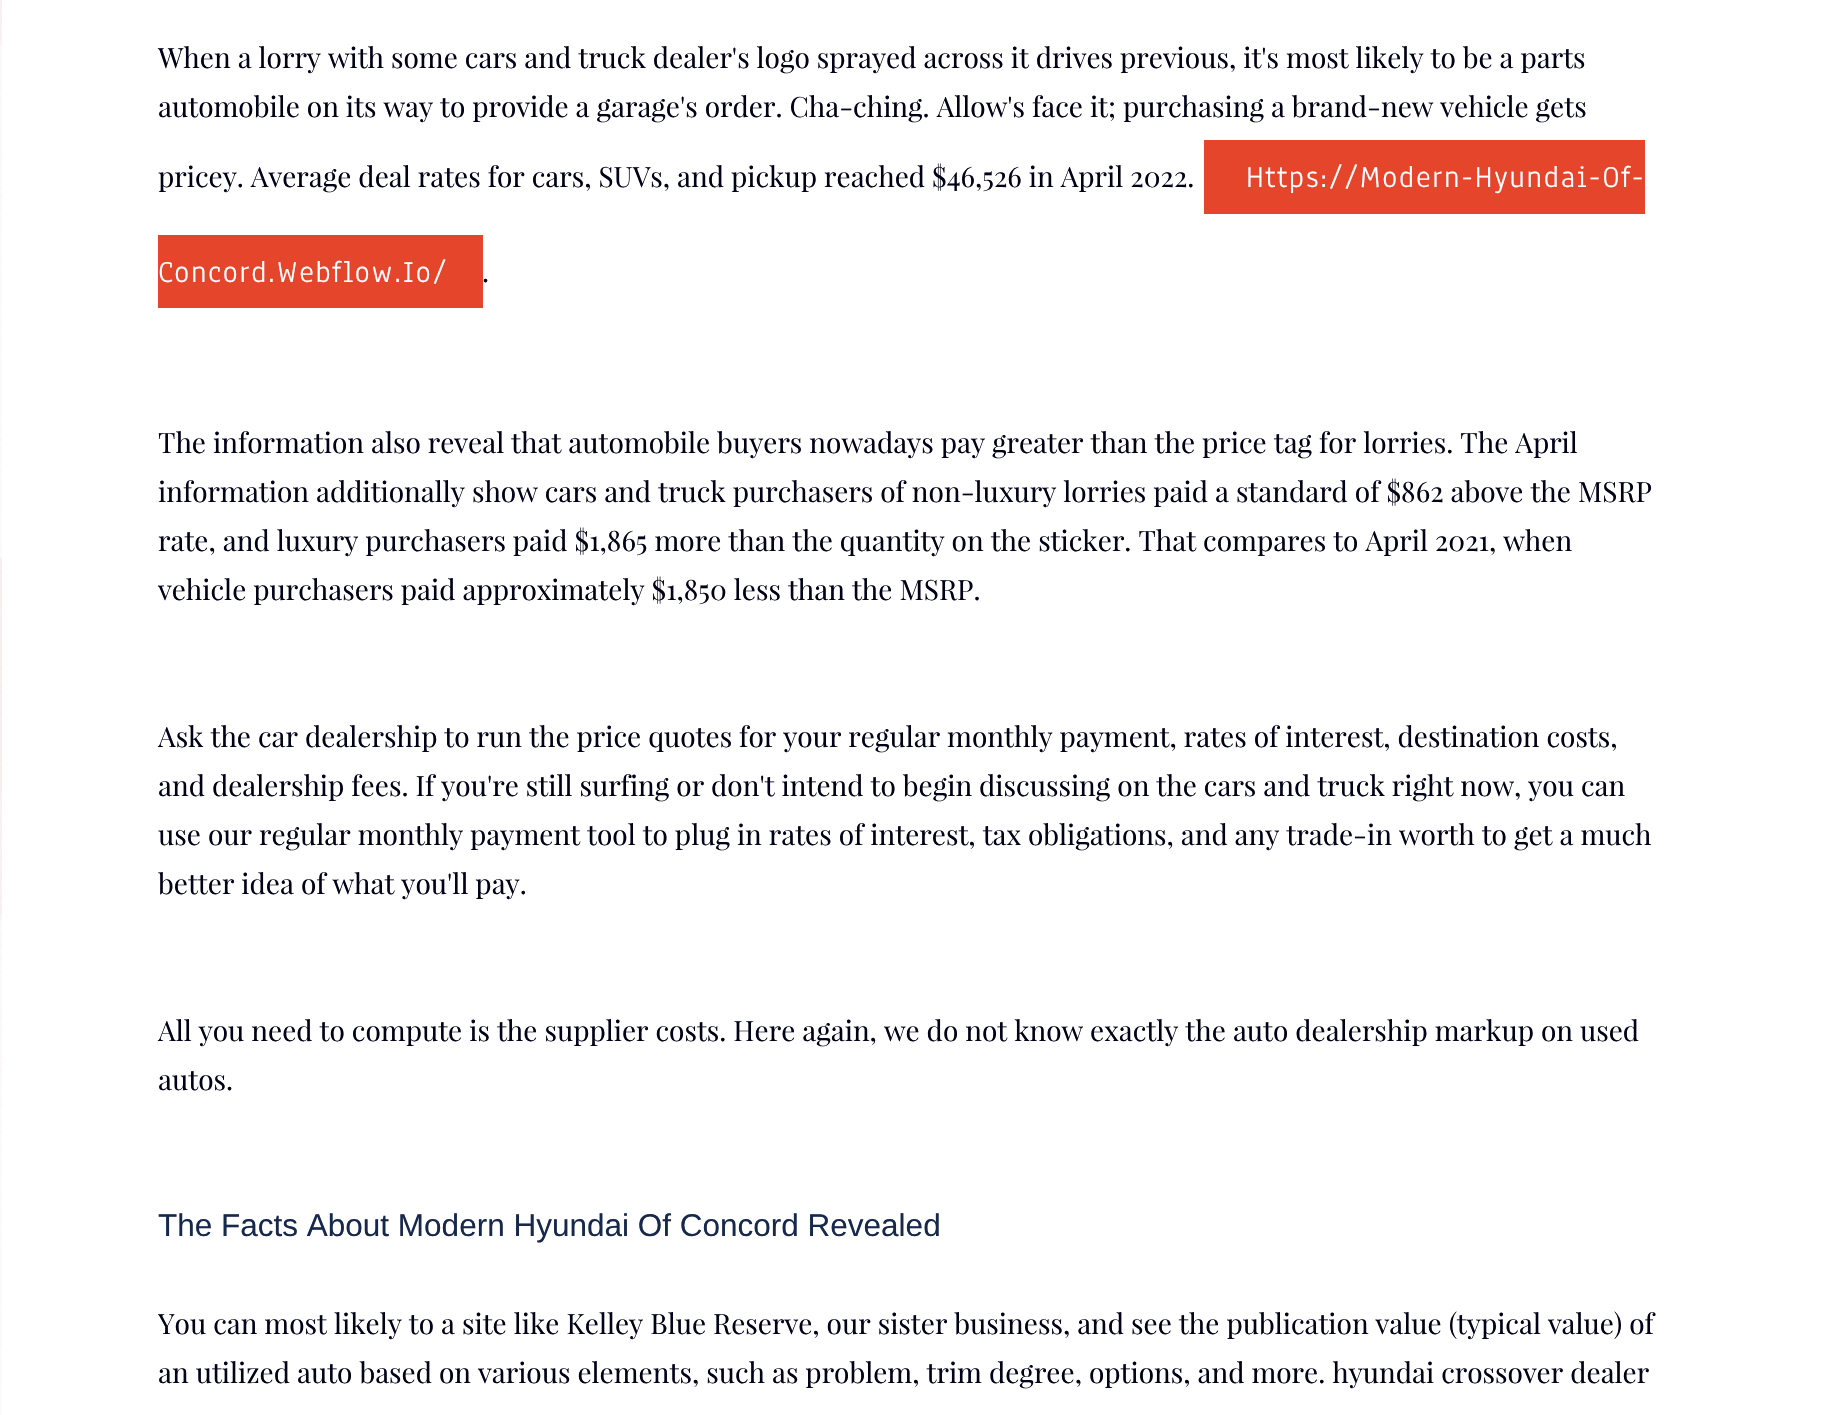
#include "include/core/SkBlurTypes.h"
#include "include/core/SkCanvas.h"
#include "include/core/SkData.h"
#include "include/core/SkFont.h"
#include "include/core/SkFontMgr.h"
#include "include/core/SkImage.h"
#include "include/core/SkMaskFilter.h"
#include "include/core/SkPaint.h"
#include "include/core/SkPathBuilder.h"
#include "include/core/SkTextBlob.h"
#include "include/effects/SkDashPathEffect.h"
#include "include/effects/SkGradientShader.h"
#include "include/utils/SkParsePath.h"

extern sk_sp<SkFontMgr> fontMgr;

static SkFont font(const char* family, int weight, float size, bool italic = false) {
    SkFontStyle style(weight, SkFontStyle::kNormal_Width,
        italic ? SkFontStyle::kItalic_Slant : SkFontStyle::kUpright_Slant);
    SkFont result(fontMgr->matchFamilyStyle(family, style), size);
    result.setSubpixel(true);
    return result;
}

static void drawLabel(SkCanvas* canvas, const char* s, float x, float y, const SkFont& font, SkColor color) {
    SkPaint ink(SkColor4f::FromColor(color));
    ink.setAntiAlias(true);
    canvas->drawString(s, x, y, font, ink);
}

static void drawTracked(SkCanvas* canvas, const char* s, float x, float y, const SkFont& font, const SkPaint& ink, float letter, float word) {
    std::vector<SkGlyphID> glyphs(font.countText(s, strlen(s), SkTextEncoding::kUTF8));
    std::vector<float> xs(glyphs.size());
    font.textToGlyphs(s, strlen(s), SkTextEncoding::kUTF8, glyphs);
    font.getXPos(glyphs, xs, x);
    float extra = 0;
    for (size_t i = 0; i < glyphs.size(); i++) {
        xs[i] += extra;
        extra += letter + word * (glyphs[i] == font.unicharToGlyph(' '));
    }
    canvas->drawTextBlob(SkTextBlob::MakeFromPosHGlyphs(glyphs, xs, y, font), 0, 0, ink);
}

static void fillRect(SkCanvas* canvas, float x, float y, float w, float h, SkColor color) {
    SkPaint ink(SkColor4f::FromColor(color));
    ink.setAntiAlias(true);
    canvas->drawRect(SkRect::MakeXYWH(x, y, w, h), ink);
}

static void drawPhoto(SkCanvas* canvas, const char* path, float x, float y, float w, float h) {
    auto image = SkImages::DeferredFromEncodedData(SkData::MakeFromFileName(path));
    canvas->drawImageRect(image, SkRect::MakeXYWH(x, y, w, h), SkSamplingOptions());
}

void draw(SkCanvas* canvas) {
    SkPaint paint;
    paint.setAntiAlias(true);
    canvas->clear(0xFFFFFFFF);
    drawPhoto(canvas, "assets/img1.png", 0, 0, 2, 1415);
    SkFont font1 = font("Playfair Display", 400, 28);
    drawLabel(canvas, "When a lorry with some cars and truck dealer's logo sprayed across it drives previous, it's most likely to be a parts", 158, 68, font1, 0xFF010118);
    drawLabel(canvas, "automobile on its way to provide a garage's order. Cha-ching. Allow's face it; purchasing a brand-new vehicle gets", 158, 117, font1, 0xFF010118);
    drawLabel(canvas, "pricey. Average deal rates for cars, SUVs, and pickup reached $46,526 in April 2022.", 158, 187, font1, 0xFF010118);
    fillRect(canvas, 1204, 140, 441, 74, 0xFFE5452B);
    SkFont font2 = font("Anaheim", 400, 31.5f);
    paint.setColor(0xFFFFFFFF);
    drawTracked(canvas, "Https://Modern-Hyundai-Of-", 1246, 187, font2, paint, 1.75f, 0);
    fillRect(canvas, 158, 235, 325, 73, 0xFFE5452B);
    drawTracked(canvas, "Concord.Webflow.Io/", 158, 282, font2, paint, 1.75f, 0);
    drawLabel(canvas, ".", 482, 282, font1, 0xFF010118);
    drawLabel(canvas, "The information also reveal that automobile buyers nowadays pay greater than the price tag for lorries. The April", 158, 453, font1, 0xFF010118);
    drawLabel(canvas, "information additionally show cars and truck purchasers of non-luxury lorries paid a standard of $862 above the MSRP", 158, 502, font1, 0xFF010118);
    drawLabel(canvas, "rate, and luxury purchasers paid $1,865 more than the quantity on the sticker. That compares to April 2021, when", 158, 551, font1, 0xFF010118);
    drawLabel(canvas, "vehicle purchasers paid approximately $1,850 less than the MSRP.", 158, 600, font1, 0xFF010118);
    drawLabel(canvas, "Ask the car dealership to run the price quotes for your regular monthly payment, rates of interest, destination costs,", 158, 747, font1, 0xFF010118);
    drawLabel(canvas, "and dealership fees. If you're still surfing or don't intend to begin discussing on the cars and truck right now, you can", 158, 796, font1, 0xFF010118);
    drawLabel(canvas, "use our regular monthly payment tool to plug in rates of interest, tax obligations, and any trade-in worth to get a much", 158, 845, font1, 0xFF010118);
    drawLabel(canvas, "better idea of what you'll pay.", 158, 894, font1, 0xFF010118);
    drawLabel(canvas, "All you need to compute is the supplier costs. Here again, we do not know exactly the auto dealership markup on used", 158, 1041, font1, 0xFF010118);
    drawLabel(canvas, "autos.", 158, 1090, font1, 0xFF010118);
    SkFont font3 = font("Liberation Sans", 400, 31.5f);
    drawLabel(canvas, "The Facts About Modern Hyundai Of Concord Revealed", 158, 1236, font3, 0xFF17284D);
    drawLabel(canvas, "You can most likely to a site like Kelley Blue Reserve, our sister business, and see the publication value (typical value) of", 158, 1334, font1, 0xFF010118);
    drawLabel(canvas, "an utilized auto based on various elements, such as problem, trim degree, options, and more. hyundai crossover dealer", 158, 1383, font1, 0xFF010118);
}
